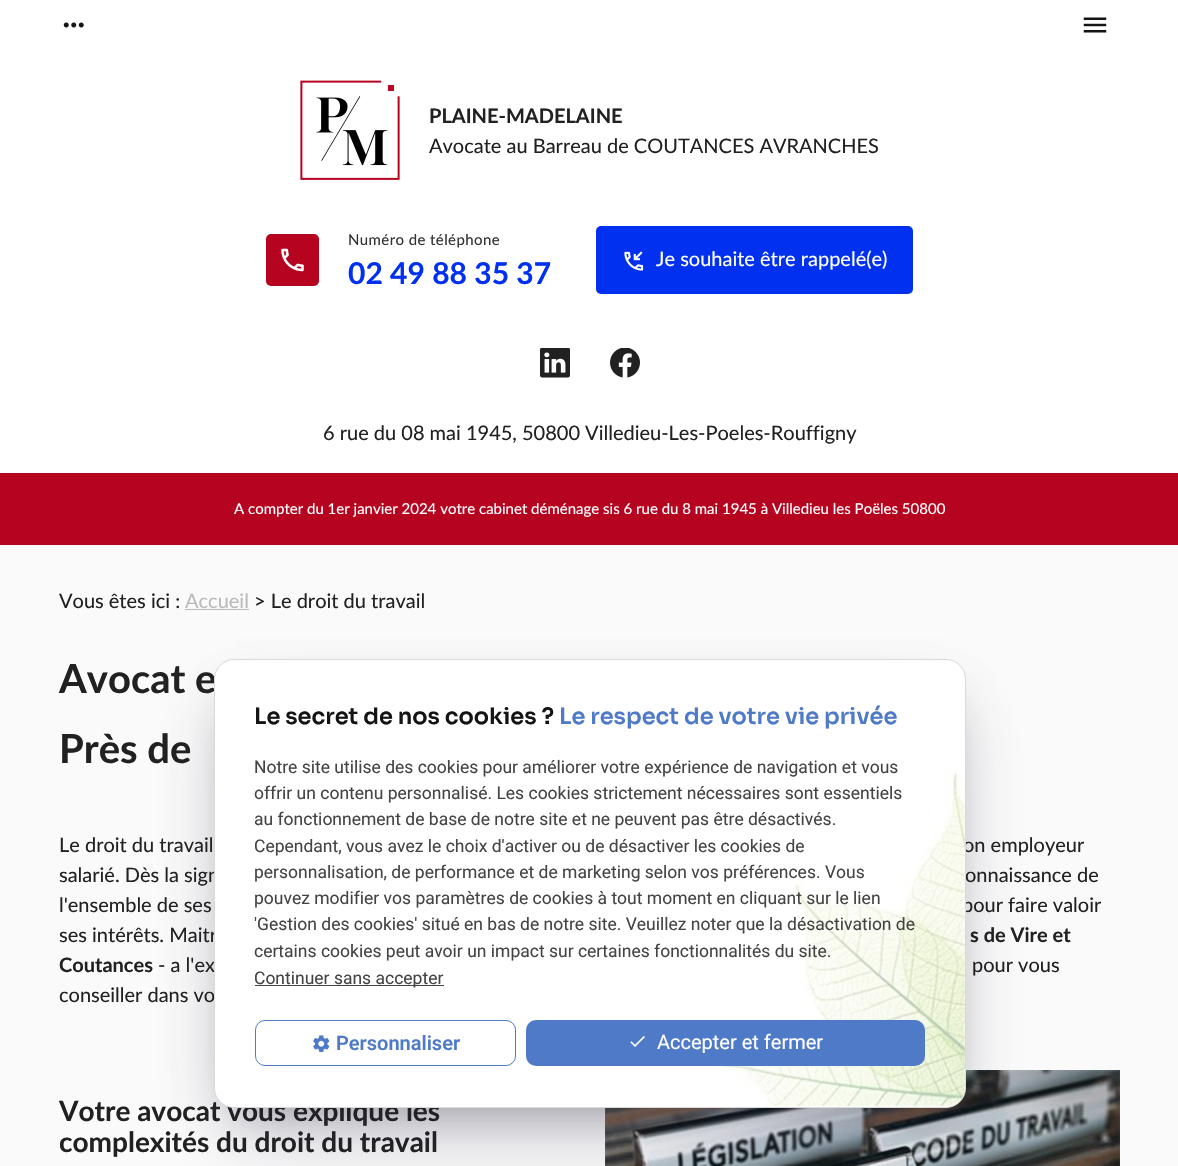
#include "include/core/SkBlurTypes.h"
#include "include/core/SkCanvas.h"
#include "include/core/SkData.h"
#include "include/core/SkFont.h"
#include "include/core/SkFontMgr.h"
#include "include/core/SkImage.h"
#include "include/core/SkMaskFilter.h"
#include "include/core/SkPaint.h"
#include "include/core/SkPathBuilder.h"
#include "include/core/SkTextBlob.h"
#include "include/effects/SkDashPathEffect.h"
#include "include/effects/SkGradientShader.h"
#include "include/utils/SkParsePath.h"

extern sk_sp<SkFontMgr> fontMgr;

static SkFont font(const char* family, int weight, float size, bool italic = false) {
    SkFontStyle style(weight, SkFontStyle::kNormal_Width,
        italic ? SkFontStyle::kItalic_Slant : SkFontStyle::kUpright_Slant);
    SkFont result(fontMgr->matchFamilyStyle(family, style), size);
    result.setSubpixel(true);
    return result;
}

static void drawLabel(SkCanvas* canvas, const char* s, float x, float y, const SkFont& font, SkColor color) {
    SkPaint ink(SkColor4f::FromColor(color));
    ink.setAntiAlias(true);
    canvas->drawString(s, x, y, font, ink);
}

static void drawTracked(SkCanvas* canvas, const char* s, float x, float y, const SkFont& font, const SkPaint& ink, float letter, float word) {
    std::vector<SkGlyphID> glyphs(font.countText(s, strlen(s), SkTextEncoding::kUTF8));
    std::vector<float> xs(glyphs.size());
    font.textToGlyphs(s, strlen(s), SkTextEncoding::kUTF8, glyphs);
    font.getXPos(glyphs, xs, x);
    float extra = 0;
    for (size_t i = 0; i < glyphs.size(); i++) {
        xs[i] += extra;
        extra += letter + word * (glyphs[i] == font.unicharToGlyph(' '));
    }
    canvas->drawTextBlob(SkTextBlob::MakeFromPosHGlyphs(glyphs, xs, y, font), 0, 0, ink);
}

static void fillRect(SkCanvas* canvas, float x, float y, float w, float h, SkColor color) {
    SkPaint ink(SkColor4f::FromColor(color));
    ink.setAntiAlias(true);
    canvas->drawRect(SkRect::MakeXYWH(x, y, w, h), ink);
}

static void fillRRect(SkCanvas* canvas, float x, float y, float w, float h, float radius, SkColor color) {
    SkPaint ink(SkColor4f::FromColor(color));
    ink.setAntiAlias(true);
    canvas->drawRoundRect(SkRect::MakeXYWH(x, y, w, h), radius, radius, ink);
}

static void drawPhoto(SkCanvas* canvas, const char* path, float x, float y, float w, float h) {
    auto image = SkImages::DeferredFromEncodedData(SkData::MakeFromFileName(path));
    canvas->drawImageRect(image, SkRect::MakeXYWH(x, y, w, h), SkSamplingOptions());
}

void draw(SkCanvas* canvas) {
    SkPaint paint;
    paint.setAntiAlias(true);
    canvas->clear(0xFFFAFAFA);
    fillRect(canvas, 0, 0, 1178, 473, 0xFFFFFFFF);
    drawPhoto(canvas, "assets/img1.png", 63, 22, 21, 6);
    drawPhoto(canvas, "assets/img2.png", 1083, 17, 24, 16);
    drawPhoto(canvas, "assets/img3.png", 300, 80, 100, 100);
    SkFont font1 = font("Lato", 700, 20);
    drawLabel(canvas, "PLAINE-MADELAINE", 429, 123, font1, 0xFF212121);
    SkFont font2 = font("Lato", 400, 20);
    drawLabel(canvas, "Avocate au Barreau de COUTANCES AVRANCHES", 429, 153, font2, 0xFF212121);
    fillRRect(canvas, 266, 234, 53, 52, 5, 0xFFB50320);
    drawPhoto(canvas, "assets/img4.png", 281, 248, 23, 24);
    SkFont font3 = font("Lato", 400, 15);
    paint.setColor(0xFF303030);
    drawTracked(canvas, "Numéro de téléphone", 348, 245, font3, paint, 0.4f, 0);
    SkFont font4 = font("Lato", 700, 30);
    drawLabel(canvas, "02 49 88 35 37", 348, 284, font4, 0xFF0131EF);
    fillRRect(canvas, 596, 226, 317, 68, 5, 0xFF0131EF);
    drawPhoto(canvas, "assets/img5.png", 624, 251, 20, 20);
    drawLabel(canvas, "Je souhaite être rappelé(e)", 656, 266, font2, 0xFFFFFFFF);
    drawPhoto(canvas, "assets/img6.png", 540, 348, 30, 30);
    drawPhoto(canvas, "assets/img7.png", 610, 348, 30, 30);
    drawLabel(canvas, "6 rue du 08 mai 1945, 50800 Villedieu-Les-Poeles-Rouffigny", 323, 440, font2, 0xFF212121);
    fillRect(canvas, 0, 473, 1178, 72, 0xFFB50320);
    drawLabel(canvas, "A compter du 1er janvier 2024 votre cabinet déménage sis 6 rue du 8 mai 1945 à Villedieu les Poëles 50800", 234, 514, font3, 0xFFFFFFFF);
    drawLabel(canvas, "Vous êtes ici :", 59, 608, font2, 0xFF212121);
    drawLabel(canvas, "Accueil", 185, 608, font2, 0xFFBABABA);
    fillRect(canvas, 185, 609, 64, 1, 0xFFBABABA);
    drawLabel(canvas, "> Le droit du travail", 254, 608, font2, 0xFF212121);
    SkFont font5 = font("Lato", 700, 40);
    drawLabel(canvas, "Avocat e", 59, 693, font5, 0xFF212121);
    drawLabel(canvas, "Près de", 59, 763, font5, 0xFF212121);
    drawLabel(canvas, "Le droit du travail", 59, 852, font2, 0xFF212121);
    drawLabel(canvas, "on employeur", 963, 852, font2, 0xFF212121);
    drawLabel(canvas, "salarié. Dès la sign", 59, 882, font2, 0xFF212121);
    drawLabel(canvas, "onnaissance de", 965, 882, font2, 0xFF212121);
    drawLabel(canvas, "l'ensemble de ses", 59, 912, font2, 0xFF212121);
    drawLabel(canvas, "pour faire valoir", 962, 912, font2, 0xFF212121);
    drawLabel(canvas, "ses intérêts. Maitr", 59, 942, font2, 0xFF212121);
    drawLabel(canvas, "s de Vire et", 970, 942, font1, 0xFF212121);
    drawLabel(canvas, "Coutances", 59, 972, font1, 0xFF212121);
    drawLabel(canvas, "- a l'ex", 158, 972, font2, 0xFF212121);
    drawLabel(canvas, "pour vous", 972, 972, font2, 0xFF212121);
    drawLabel(canvas, "conseiller dans vo", 59, 1002, font2, 0xFF212121);
    SkFont font6 = font("Lato", 700, 28);
    drawLabel(canvas, "Votre avocat vous explique les", 59, 1121, font6, 0xFF212121);
    drawLabel(canvas, "complexités du droit du travail", 59, 1152, font6, 0xFF212121);
    drawPhoto(canvas, "assets/img8.png", 605, 1070, 515, 96);
    paint.setColor(0x4D000000);
    paint.setMaskFilter(SkMaskFilter::MakeBlur(kNormal_SkBlurStyle, 22.5f));
    canvas->drawRect(SkRect::MakeXYWH(236, 704, 708, 404), paint);
    paint.setMaskFilter(nullptr);
    paint.setColor(0x4032325D);
    paint.setMaskFilter(SkMaskFilter::MakeBlur(kNormal_SkBlurStyle, 37.5f));
    canvas->drawRoundRect(SkRect::MakeXYWH(229, 711, 722, 419), 5, 5, paint);
    paint.setMaskFilter(nullptr);
    paint.setColor(0xFFFFFFFF);
    canvas->drawRoundRect(SkRect::MakeXYWH(214.5f, 659.5f, 751, 448), 19.5f, 19.5f, paint);
    paint.setStroke(true);
    paint.setStrokeWidth(1);
    paint.setColor(0xFFD9D9D9);
    canvas->drawRoundRect(SkRect::MakeXYWH(214.5f, 659.5f, 751, 448), 19.5f, 19.5f, paint);
    SkFont font7 = font("Sora", 600, 22.5f);
    drawLabel(canvas, "Le secret de nos cookies ?", 254, 724, font7, 0xFF141414);
    drawLabel(canvas, "Le respect de votre vie privée", 559, 724, font7, 0xFF4E7AC7);
    drawPhoto(canvas, "assets/img11.png", 715, 769, 250, 338);
    SkFont font8 = font("Roboto", 400, 17.5f);
    drawLabel(canvas, "Notre site utilise des cookies pour améliorer votre expérience de navigation et vous", 254, 773, font8, 0xFF444444);
    drawLabel(canvas, "offrir un contenu personnalisé. Les cookies strictement nécessaires sont essentiels", 254, 799, font8, 0xFF444444);
    drawLabel(canvas, "au fonctionnement de base de notre site et ne peuvent pas être désactivés.", 254, 825, font8, 0xFF444444);
    drawLabel(canvas, "Cependant, vous avez le choix d'activer ou de désactiver les cookies de", 254, 852, font8, 0xFF444444);
    drawLabel(canvas, "personnalisation, de performance et de marketing selon vos préférences. Vous", 254, 878, font8, 0xFF444444);
    drawLabel(canvas, "pouvez modifier vos paramètres de cookies à tout moment en cliquant sur le lien", 254, 904, font8, 0xFF444444);
    drawLabel(canvas, "'Gestion des cookies' situé en bas de notre site. Veuillez noter que la désactivation de", 254, 930, font8, 0xFF444444);
    drawLabel(canvas, "certains cookies peut avoir un impact sur certaines fonctionnalités du site.", 254, 957, font8, 0xFF444444);
    fillRect(canvas, 255, 985, 189, 1, 0xFF444444);
    drawLabel(canvas, "Continuer sans accepter", 254, 984, font8, 0xFF444444);
    paint.setColor(0xFF4E7AC7);
    canvas->drawRoundRect(SkRect::MakeXYWH(255.5f, 1020.5f, 260, 45), 9.5f, 9.5f, paint);
    drawPhoto(canvas, "assets/img9.png", 313, 1035, 17, 18);
    SkFont font9 = font("Roboto", 600, 20);
    drawLabel(canvas, "Personnaliser", 336, 1050, font9, 0xFF4E7AC7);
    fillRRect(canvas, 526, 1020, 399, 46, 10, 0xFF4E7AC7);
    drawPhoto(canvas, "assets/img10.png", 630, 1036, 15, 11);
    SkFont font10 = font("Roboto", 400, 20);
    drawLabel(canvas, "Accepter et fermer", 657, 1049, font10, 0xFFFFFFFF);
}
